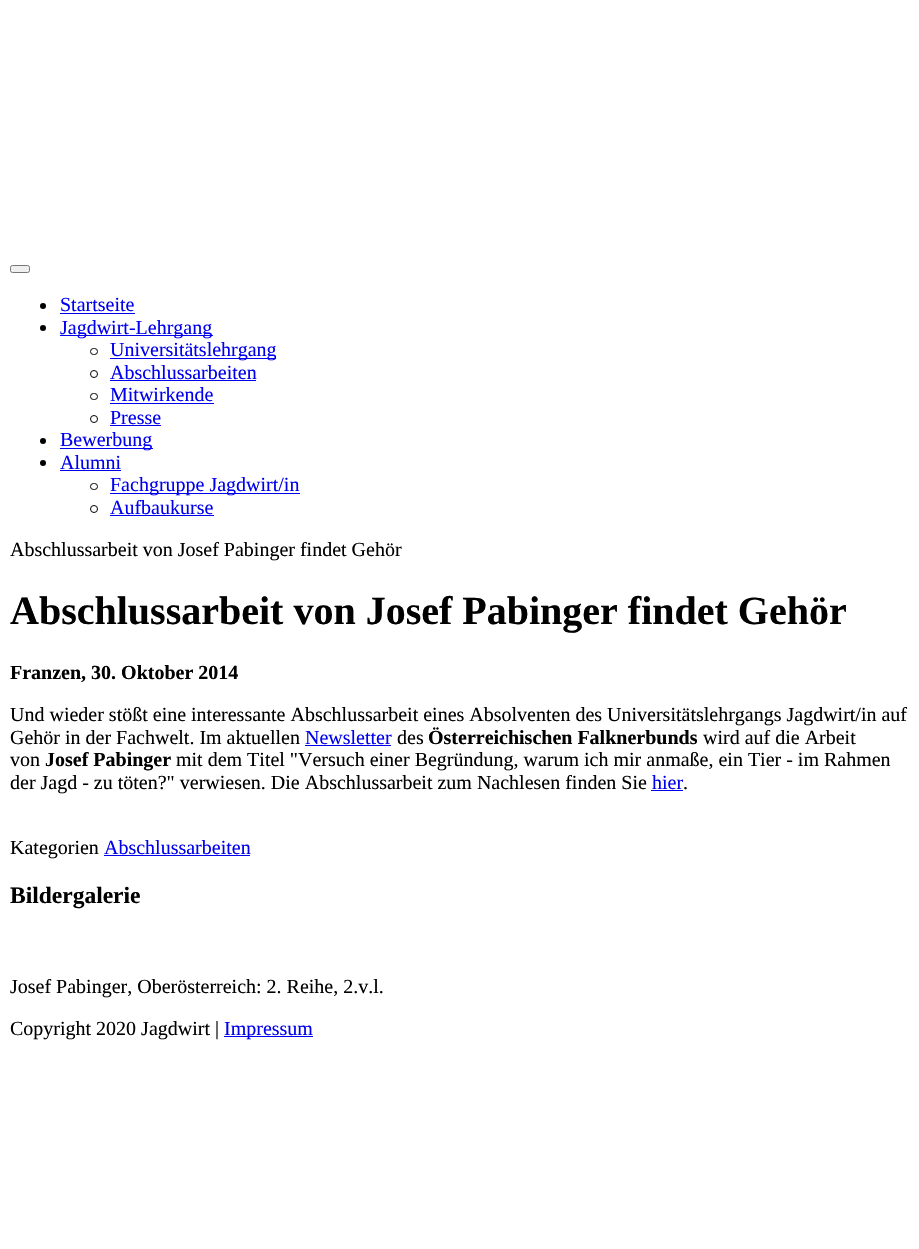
#include "include/core/SkBlurTypes.h"
#include "include/core/SkCanvas.h"
#include "include/core/SkData.h"
#include "include/core/SkFont.h"
#include "include/core/SkFontMgr.h"
#include "include/core/SkImage.h"
#include "include/core/SkMaskFilter.h"
#include "include/core/SkPaint.h"
#include "include/core/SkPathBuilder.h"
#include "include/core/SkTextBlob.h"
#include "include/effects/SkDashPathEffect.h"
#include "include/effects/SkGradientShader.h"
#include "include/utils/SkParsePath.h"

extern sk_sp<SkFontMgr> fontMgr;

static SkFont font(const char* family, int weight, float size, bool italic = false) {
    SkFontStyle style(weight, SkFontStyle::kNormal_Width,
        italic ? SkFontStyle::kItalic_Slant : SkFontStyle::kUpright_Slant);
    SkFont result(fontMgr->matchFamilyStyle(family, style), size);
    result.setSubpixel(true);
    return result;
}

static void drawLabel(SkCanvas* canvas, const char* s, float x, float y, const SkFont& font, SkColor color) {
    SkPaint ink(SkColor4f::FromColor(color));
    ink.setAntiAlias(true);
    canvas->drawString(s, x, y, font, ink);
}

static void fillRect(SkCanvas* canvas, float x, float y, float w, float h, SkColor color) {
    SkPaint ink(SkColor4f::FromColor(color));
    ink.setAntiAlias(true);
    canvas->drawRect(SkRect::MakeXYWH(x, y, w, h), ink);
}

void draw(SkCanvas* canvas) {
    SkPaint paint;
    paint.setAntiAlias(true);
    canvas->clear(0xFFFFFFFF);
    paint.setColor(0xFFEFEFEF);
    canvas->drawRoundRect(SkRect::MakeXYWH(10.5f, 265.5f, 19, 7), 2, 2, paint);
    paint.setStroke(true);
    paint.setStrokeWidth(1);
    paint.setColor(0xFF767676);
    canvas->drawRoundRect(SkRect::MakeXYWH(10.5f, 265.5f, 19, 7), 2, 2, paint);
    paint.setStroke(false);
    paint.setColor(0xFF000000);
    canvas->drawCircle(43, 306, 3, paint);
    SkFont font1 = font("Liberation Serif", 400, 20);
    drawLabel(canvas, "Startseite", 60, 311, font1, 0xFF0000EE);
    fillRect(canvas, 60, 313, 75, 1, 0xFF0000EE);
    canvas->drawCircle(43, 328, 3, paint);
    fillRect(canvas, 60, 335, 153, 1, 0xFF0000EE);
    drawLabel(canvas, "Jagdwirt-Lehrgang", 60, 334, font1, 0xFF0000EE);
    paint.setStroke(true);
    canvas->drawRoundRect(SkRect::MakeXYWH(90.5f, 348.5f, 7, 6), 3, 3, paint);
    fillRect(canvas, 110, 358, 166, 1, 0xFF0000EE);
    drawLabel(canvas, "Universitätslehrgang", 110, 356, font1, 0xFF0000EE);
    canvas->drawCircle(94, 374, 3.5f, paint);
    drawLabel(canvas, "Abschlussarbeiten", 110, 379, font1, 0xFF0000EE);
    fillRect(canvas, 110, 380, 146, 1, 0xFF0000EE);
    canvas->drawRoundRect(SkRect::MakeXYWH(90.5f, 393.5f, 7, 6), 3, 3, paint);
    drawLabel(canvas, "Mitwirkende", 110, 401, font1, 0xFF0000EE);
    fillRect(canvas, 110, 403, 104, 1, 0xFF0000EE);
    canvas->drawCircle(94, 419, 3.5f, paint);
    drawLabel(canvas, "Presse", 110, 424, font1, 0xFF0000EE);
    fillRect(canvas, 110, 425, 51, 1, 0xFF0000EE);
    paint.setStroke(false);
    canvas->drawCircle(43, 441, 3, paint);
    fillRect(canvas, 60, 448, 93, 1, 0xFF0000EE);
    drawLabel(canvas, "Bewerbung", 60, 446, font1, 0xFF0000EE);
    canvas->drawCircle(43, 463, 3, paint);
    drawLabel(canvas, "Alumni", 60, 469, font1, 0xFF0000EE);
    fillRect(canvas, 60, 470, 61, 1, 0xFF0000EE);
    paint.setStroke(true);
    canvas->drawRoundRect(SkRect::MakeXYWH(90.5f, 483.5f, 7, 6), 3, 3, paint);
    fillRect(canvas, 110, 493, 190, 1, 0xFF0000EE);
    drawLabel(canvas, "Fachgruppe Jagdwirt/in", 110, 491, font1, 0xFF0000EE);
    canvas->drawCircle(94, 509, 3.5f, paint);
    drawLabel(canvas, "Aufbaukurse", 110, 514, font1, 0xFF0000EE);
    fillRect(canvas, 110, 515, 104, 1, 0xFF0000EE);
    drawLabel(canvas, "Abschlussarbeit von Josef Pabinger findet Gehör", 10, 556, font1, 0xFF000000);
    SkFont font2 = font("Liberation Serif", 700, 40);
    drawLabel(canvas, "Abschlussarbeit von Josef Pabinger findet Gehör", 10, 624, font2, 0xFF000000);
    SkFont font3 = font("Liberation Serif", 700, 20);
    drawLabel(canvas, "Franzen, 30. Oktober 2014", 10, 679, font3, 0xFF000000);
    drawLabel(canvas, "Und wieder stößt eine interessante Abschlussarbeit eines Absolventen des Universitätslehrgangs Jagdwirt/in auf", 10, 721, font1, 0xFF000000);
    drawLabel(canvas, "Gehör in der Fachwelt. Im aktuellen", 10, 744, font1, 0xFF000000);
    drawLabel(canvas, "Newsletter", 305, 744, font1, 0xFF0000EE);
    fillRect(canvas, 305, 745, 86, 1, 0xFF0000EE);
    drawLabel(canvas, "des", 397, 744, font1, 0xFF000000);
    drawLabel(canvas, "Österreichischen Falknerbunds", 428, 744, font3, 0xFF000000);
    drawLabel(canvas, "wird auf die Arbeit", 703, 744, font1, 0xFF000000);
    drawLabel(canvas, "von", 10, 766, font1, 0xFF000000);
    drawLabel(canvas, "Josef Pabinger", 45, 766, font3, 0xFF000000);
    drawLabel(canvas, "mit dem Titel \"Versuch einer Begründung, warum ich mir anmaße, ein Tier - im Rahmen", 176, 766, font1, 0xFF000000);
    drawLabel(canvas, "der Jagd - zu töten?\" verwiesen. Die Abschlussarbeit zum Nachlesen finden Sie", 10, 789, font1, 0xFF000000);
    drawLabel(canvas, "hier", 652, 789, font1, 0xFF0000EE);
    fillRect(canvas, 651, 790, 32, 1, 0xFF0000EE);
    drawLabel(canvas, ".", 683, 789, font1, 0xFF000000);
    drawLabel(canvas, "Kategorien", 10, 854, font1, 0xFF000000);
    drawLabel(canvas, "Abschlussarbeiten", 104, 854, font1, 0xFF0000EE);
    fillRect(canvas, 104, 855, 146, 1, 0xFF0000EE);
    SkFont font4 = font("Liberation Serif", 700, 23.5f);
    drawLabel(canvas, "Bildergalerie", 10, 903, font4, 0xFF000000);
    drawLabel(canvas, "Josef Pabinger, Oberösterreich: 2. Reihe, 2.v.l.", 10, 993, font1, 0xFF000000);
    drawLabel(canvas, "Copyright 2020 Jagdwirt |", 10, 1035, font1, 0xFF000000);
    fillRect(canvas, 224, 1036, 89, 1, 0xFF0000EE);
    drawLabel(canvas, "Impressum", 224, 1035, font1, 0xFF0000EE);
}
